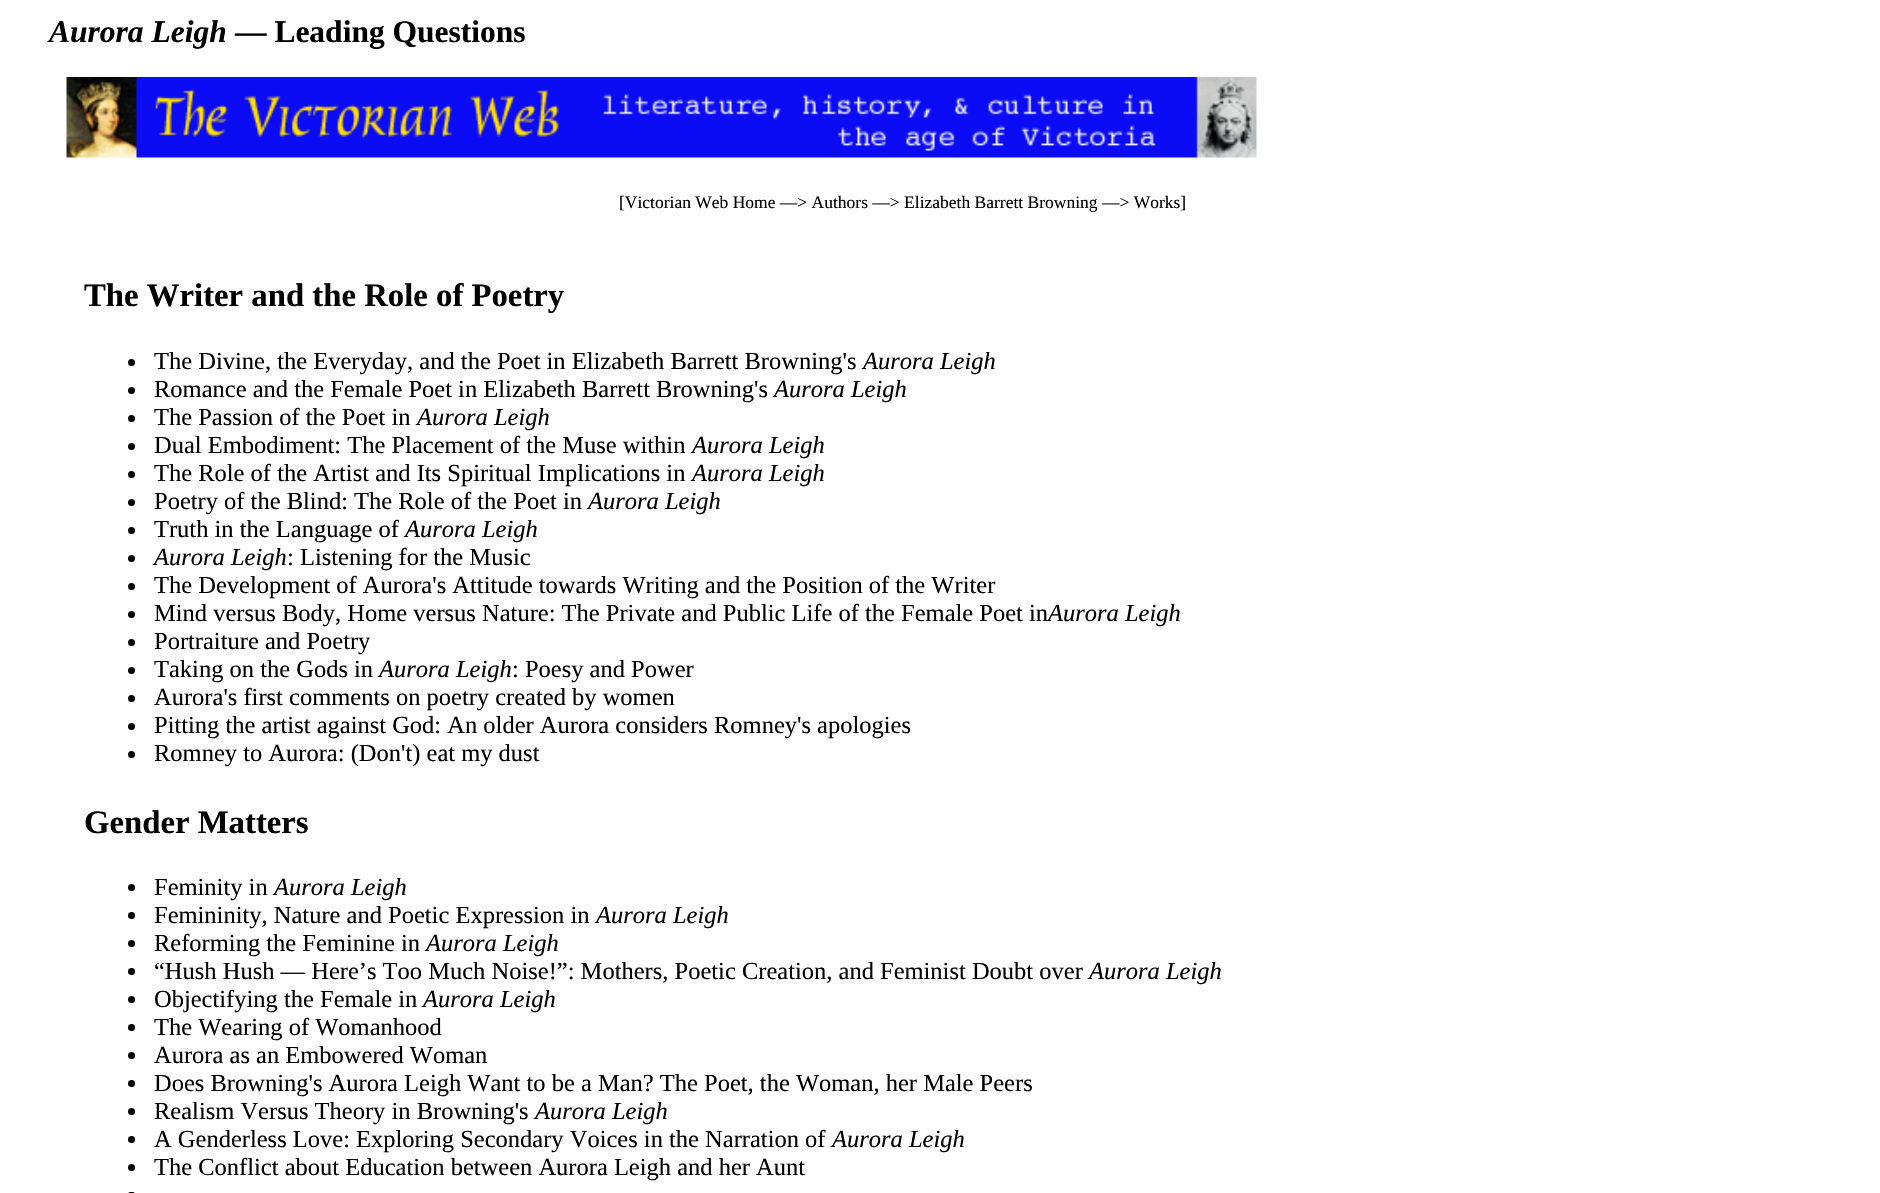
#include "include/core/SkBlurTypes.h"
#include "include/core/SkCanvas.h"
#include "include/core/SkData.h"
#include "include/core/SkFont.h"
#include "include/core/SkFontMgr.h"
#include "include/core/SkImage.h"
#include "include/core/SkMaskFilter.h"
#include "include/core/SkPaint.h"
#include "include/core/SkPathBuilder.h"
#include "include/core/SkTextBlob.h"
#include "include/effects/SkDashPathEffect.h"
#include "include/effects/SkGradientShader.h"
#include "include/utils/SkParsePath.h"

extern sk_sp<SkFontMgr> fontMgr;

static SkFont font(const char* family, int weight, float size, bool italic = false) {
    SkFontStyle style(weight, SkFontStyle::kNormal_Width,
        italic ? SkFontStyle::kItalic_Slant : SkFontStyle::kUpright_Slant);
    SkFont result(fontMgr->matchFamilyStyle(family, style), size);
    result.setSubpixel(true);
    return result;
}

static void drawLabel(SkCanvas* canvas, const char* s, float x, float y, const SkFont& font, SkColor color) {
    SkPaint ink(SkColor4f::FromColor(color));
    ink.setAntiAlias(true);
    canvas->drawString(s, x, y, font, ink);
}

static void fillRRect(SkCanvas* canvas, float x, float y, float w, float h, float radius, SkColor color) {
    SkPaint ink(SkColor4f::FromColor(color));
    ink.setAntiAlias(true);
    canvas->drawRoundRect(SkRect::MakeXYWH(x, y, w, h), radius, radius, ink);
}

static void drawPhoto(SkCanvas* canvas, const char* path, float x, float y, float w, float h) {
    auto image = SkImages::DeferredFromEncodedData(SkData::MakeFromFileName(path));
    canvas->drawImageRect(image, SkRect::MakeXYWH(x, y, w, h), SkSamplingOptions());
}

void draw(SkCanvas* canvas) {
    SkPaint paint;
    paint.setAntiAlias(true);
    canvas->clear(0xFFFFFFFF);
    SkFont font1 = font("Liberation Serif", 700, 31.5f, true);
    drawLabel(canvas, "Aurora Leigh", 49, 42, font1, 0xFF000000);
    SkFont font2 = font("Liberation Serif", 700, 31.5f);
    drawLabel(canvas, "— Leading Questions", 235, 42, font2, 0xFF000000);
    drawPhoto(canvas, "assets/img1.png", 66, 77, 1191, 81);
    SkFont font3 = font("Liberation Serif", 400, 17.5f);
    drawLabel(canvas, "[Victorian Web Home —> Authors —> Elizabeth Barrett Browning —> Works]", 619, 208, font3, 0xFF000000);
    SkFont font4 = font("Liberation Serif", 700, 32.75f);
    drawLabel(canvas, "The Writer and the Role of Poetry", 84, 306, font4, 0xFF000000);
    paint.setColor(0xFF000000);
    canvas->drawCircle(131.5f, 362.5f, 3.5f, paint);
    SkFont font5 = font("Liberation Serif", 400, 24.5f);
    drawLabel(canvas, "The Divine, the Everyday, and the Poet in Elizabeth Barrett Browning's", 154, 369, font5, 0xFF000000);
    SkFont font6 = font("Liberation Serif", 400, 24.5f, true);
    drawLabel(canvas, "Aurora Leigh", 863, 369, font6, 0xFF000000);
    canvas->drawCircle(131.5f, 390.5f, 3.5f, paint);
    drawLabel(canvas, "Romance and the Female Poet in Elizabeth Barrett Browning's", 154, 397, font5, 0xFF000000);
    drawLabel(canvas, "Aurora Leigh", 774, 397, font6, 0xFF000000);
    canvas->drawCircle(131.5f, 418.5f, 3.5f, paint);
    drawLabel(canvas, "The Passion of the Poet in", 154, 425, font5, 0xFF000000);
    drawLabel(canvas, "Aurora Leigh", 417, 425, font6, 0xFF000000);
    canvas->drawCircle(131.5f, 446.5f, 3.5f, paint);
    drawLabel(canvas, "Dual Embodiment: The Placement of the Muse within", 154, 453, font5, 0xFF000000);
    drawLabel(canvas, "Aurora Leigh", 692, 453, font6, 0xFF000000);
    canvas->drawCircle(131.5f, 474.5f, 3.5f, paint);
    drawLabel(canvas, "The Role of the Artist and Its Spiritual Implications in", 154, 481, font5, 0xFF000000);
    drawLabel(canvas, "Aurora Leigh", 692, 481, font6, 0xFF000000);
    canvas->drawCircle(131.5f, 502.5f, 3.5f, paint);
    drawLabel(canvas, "Poetry of the Blind: The Role of the Poet in", 154, 509, font5, 0xFF000000);
    drawLabel(canvas, "Aurora Leigh", 588, 509, font6, 0xFF000000);
    canvas->drawCircle(131.5f, 530.5f, 3.5f, paint);
    drawLabel(canvas, "Truth in the Language of", 154, 537, font5, 0xFF000000);
    drawLabel(canvas, "Aurora Leigh", 405, 537, font6, 0xFF000000);
    canvas->drawCircle(131.5f, 558.5f, 3.5f, paint);
    drawLabel(canvas, "Aurora Leigh", 154, 565, font6, 0xFF000000);
    drawLabel(canvas, ": Listening for the Music", 287, 565, font5, 0xFF000000);
    canvas->drawCircle(131.5f, 586.5f, 3.5f, paint);
    drawLabel(canvas, "The Development of Aurora's Attitude towards Writing and the Position of the Writer", 154, 593, font5, 0xFF000000);
    canvas->drawCircle(131.5f, 614.5f, 3.5f, paint);
    drawLabel(canvas, "Mind versus Body, Home versus Nature: The Private and Public Life of the Female Poet in", 154, 621, font5, 0xFF000000);
    drawLabel(canvas, "Aurora Leigh", 1048, 621, font6, 0xFF000000);
    canvas->drawCircle(131.5f, 642.5f, 3.5f, paint);
    drawLabel(canvas, "Portraiture and Poetry", 154, 649, font5, 0xFF000000);
    canvas->drawCircle(131.5f, 670.5f, 3.5f, paint);
    drawLabel(canvas, "Taking on the Gods in", 154, 677, font5, 0xFF000000);
    drawLabel(canvas, "Aurora Leigh", 379, 677, font6, 0xFF000000);
    drawLabel(canvas, ": Poesy and Power", 512, 677, font5, 0xFF000000);
    canvas->drawCircle(131.5f, 698.5f, 3.5f, paint);
    drawLabel(canvas, "Aurora's first comments on poetry created by women", 154, 705, font5, 0xFF000000);
    canvas->drawCircle(131.5f, 726.5f, 3.5f, paint);
    drawLabel(canvas, "Pitting the artist against God: An older Aurora considers Romney's apologies", 154, 733, font5, 0xFF000000);
    canvas->drawCircle(131.5f, 754.5f, 3.5f, paint);
    drawLabel(canvas, "Romney to Aurora: (Don't) eat my dust", 154, 761, font5, 0xFF000000);
    drawLabel(canvas, "Gender Matters", 84, 833, font4, 0xFF000000);
    canvas->drawCircle(131.5f, 887.5f, 3.5f, paint);
    drawLabel(canvas, "Feminity in", 154, 895, font5, 0xFF000000);
    drawLabel(canvas, "Aurora Leigh", 274, 895, font6, 0xFF000000);
    canvas->drawCircle(131.5f, 915.5f, 3.5f, paint);
    drawLabel(canvas, "Femininity, Nature and Poetic Expression in", 154, 923, font5, 0xFF000000);
    drawLabel(canvas, "Aurora Leigh", 596, 923, font6, 0xFF000000);
    canvas->drawCircle(131.5f, 943.5f, 3.5f, paint);
    drawLabel(canvas, "Reforming the Feminine in", 154, 951, font5, 0xFF000000);
    drawLabel(canvas, "Aurora Leigh", 426, 951, font6, 0xFF000000);
    canvas->drawCircle(131.5f, 971.5f, 3.5f, paint);
    drawLabel(canvas, "“Hush Hush — Here’s Too Much Noise!”: Mothers, Poetic Creation, and Feminist Doubt over", 154, 979, font5, 0xFF000000);
    drawLabel(canvas, "Aurora Leigh", 1089, 979, font6, 0xFF000000);
    canvas->drawCircle(131.5f, 999.5f, 3.5f, paint);
    drawLabel(canvas, "Objectifying the Female in", 154, 1007, font5, 0xFF000000);
    drawLabel(canvas, "Aurora Leigh", 423, 1007, font6, 0xFF000000);
    canvas->drawCircle(131.5f, 1027.5f, 3.5f, paint);
    drawLabel(canvas, "The Wearing of Womanhood", 154, 1035, font5, 0xFF000000);
    canvas->drawCircle(131.5f, 1055.5f, 3.5f, paint);
    drawLabel(canvas, "Aurora as an Embowered Woman", 154, 1063, font5, 0xFF000000);
    canvas->drawCircle(131.5f, 1083.5f, 3.5f, paint);
    drawLabel(canvas, "Does Browning's Aurora Leigh Want to be a Man? The Poet, the Woman, her Male Peers", 154, 1091, font5, 0xFF000000);
    canvas->drawCircle(131.5f, 1111.5f, 3.5f, paint);
    drawLabel(canvas, "Realism Versus Theory in Browning's", 154, 1119, font5, 0xFF000000);
    drawLabel(canvas, "Aurora Leigh", 535, 1119, font6, 0xFF000000);
    canvas->drawCircle(131.5f, 1139.5f, 3.5f, paint);
    drawLabel(canvas, "A Genderless Love: Exploring Secondary Voices in the Narration of", 154, 1147, font5, 0xFF000000);
    drawLabel(canvas, "Aurora Leigh", 832, 1147, font6, 0xFF000000);
    canvas->drawCircle(131.5f, 1167.5f, 3.5f, paint);
    drawLabel(canvas, "The Conflict about Education between Aurora Leigh and her Aunt", 154, 1175, font5, 0xFF000000);
    fillRRect(canvas, 128, 1192, 7, 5, 3.5f, 0xFF000000);
}
